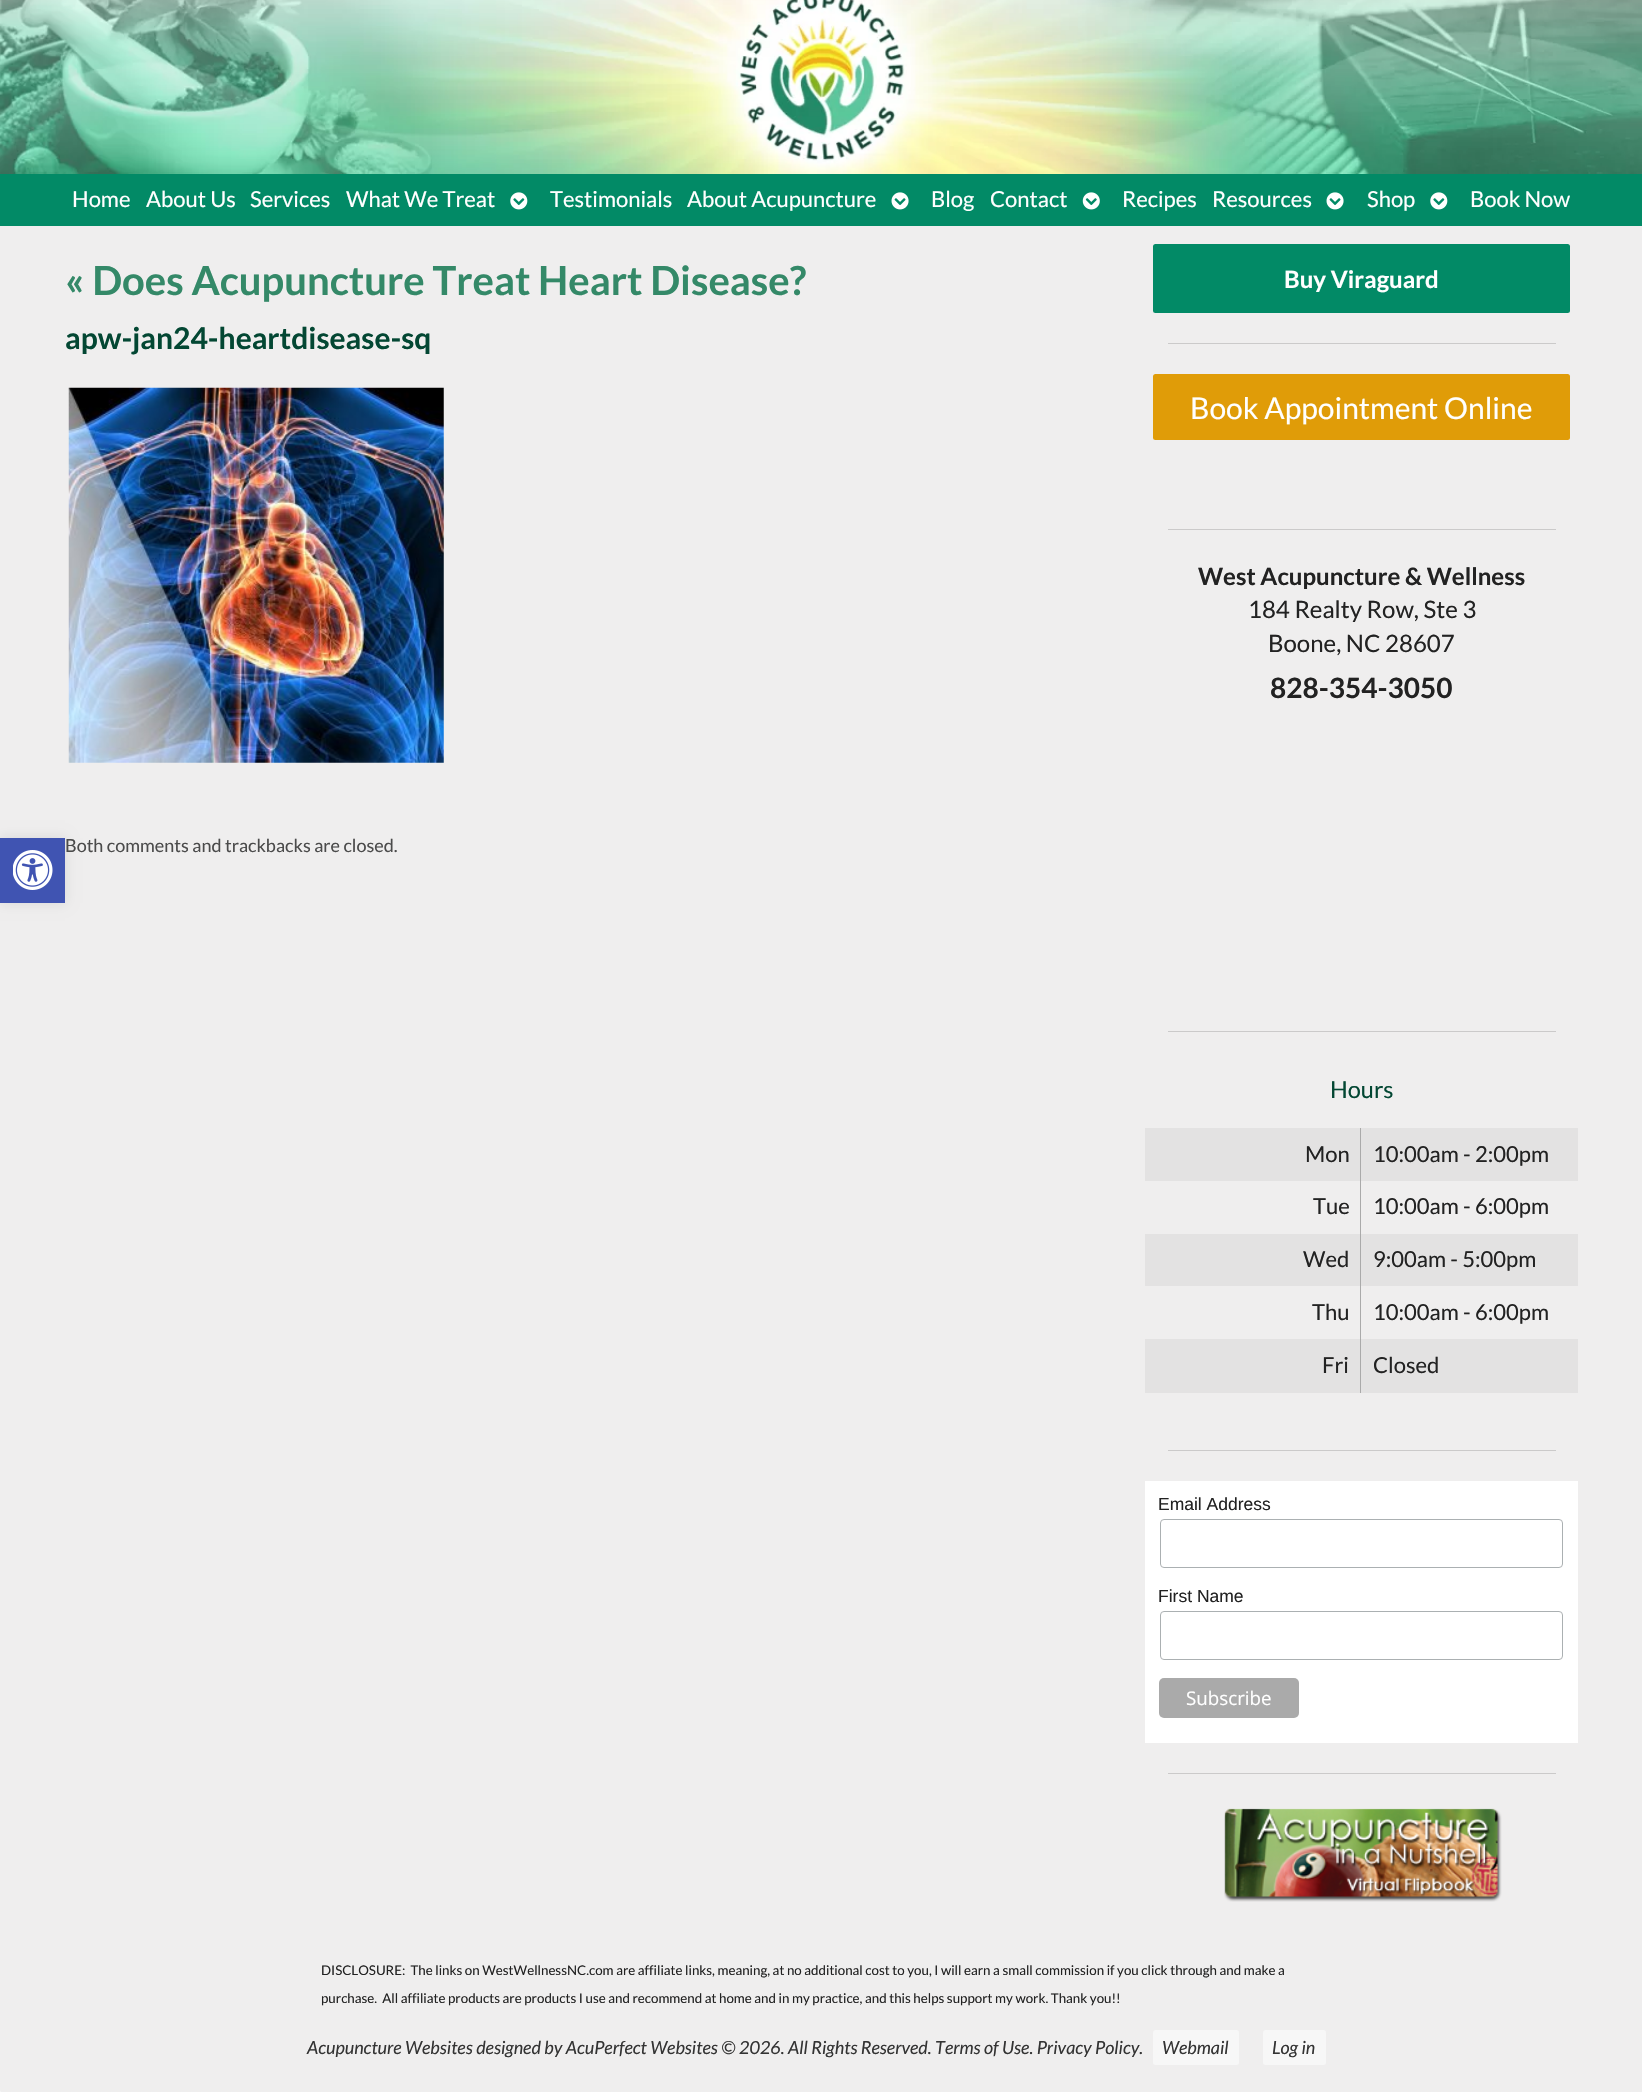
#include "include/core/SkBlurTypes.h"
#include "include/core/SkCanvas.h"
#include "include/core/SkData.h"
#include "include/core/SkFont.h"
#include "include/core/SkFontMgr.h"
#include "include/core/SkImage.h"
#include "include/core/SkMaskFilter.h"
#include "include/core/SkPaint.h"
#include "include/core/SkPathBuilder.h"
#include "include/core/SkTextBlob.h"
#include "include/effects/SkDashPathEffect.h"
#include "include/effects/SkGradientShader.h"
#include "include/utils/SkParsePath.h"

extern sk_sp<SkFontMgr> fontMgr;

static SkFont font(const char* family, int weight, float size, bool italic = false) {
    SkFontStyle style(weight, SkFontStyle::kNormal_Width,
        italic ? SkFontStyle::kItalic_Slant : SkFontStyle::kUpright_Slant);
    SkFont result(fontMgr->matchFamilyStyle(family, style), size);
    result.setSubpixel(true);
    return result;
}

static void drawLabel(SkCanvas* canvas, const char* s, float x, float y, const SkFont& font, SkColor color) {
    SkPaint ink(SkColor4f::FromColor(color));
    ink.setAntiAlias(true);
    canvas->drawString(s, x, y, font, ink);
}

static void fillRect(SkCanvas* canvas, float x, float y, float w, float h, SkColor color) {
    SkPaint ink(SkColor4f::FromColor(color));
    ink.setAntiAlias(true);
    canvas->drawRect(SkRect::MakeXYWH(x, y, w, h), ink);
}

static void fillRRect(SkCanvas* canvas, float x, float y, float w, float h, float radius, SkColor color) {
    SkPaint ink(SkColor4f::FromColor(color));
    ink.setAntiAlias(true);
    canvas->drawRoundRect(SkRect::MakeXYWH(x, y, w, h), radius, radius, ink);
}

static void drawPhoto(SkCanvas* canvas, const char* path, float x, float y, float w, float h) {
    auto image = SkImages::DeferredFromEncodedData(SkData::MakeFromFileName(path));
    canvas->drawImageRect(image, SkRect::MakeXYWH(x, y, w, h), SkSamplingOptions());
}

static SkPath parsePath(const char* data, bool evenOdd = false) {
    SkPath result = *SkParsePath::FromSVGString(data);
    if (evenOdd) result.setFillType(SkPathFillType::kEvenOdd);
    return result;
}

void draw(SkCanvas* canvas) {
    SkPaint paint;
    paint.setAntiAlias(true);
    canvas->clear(0xFFFFFFFF);
    paint.setColor(0xFFEFEEEE);
    canvas->drawPath(parsePath("M0-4H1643V2090C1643 2092 1641 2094 1639 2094H4C2 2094 0 2092 0 2090Z"), paint);
    paint.setColor(0x1A000000);
    paint.setMaskFilter(SkMaskFilter::MakeBlur(kNormal_SkBlurStyle, 6));
    canvas->drawRect(SkRect::MakeXYWH(0, 838, 65, 65), paint);
    paint.setMaskFilter(nullptr);
    fillRect(canvas, 0, 838, 65, 65, 0xFF4054B2);
    drawPhoto(canvas, "assets/img1.png", 13, 850, 40, 40);
    drawPhoto(canvas, "assets/img2.png", 0, 0, 1642, 174);
    fillRect(canvas, 0, 174, 1642, 52, 0xFF028A66);
    SkFont font1 = font("Lato", 400, 22);
    drawLabel(canvas, "Home", 72, 207, font1, 0xFFFFFFFF);
    drawLabel(canvas, "About Us", 146, 207, font1, 0xFFFFFFFF);
    drawLabel(canvas, "Services", 250, 207, font1, 0xFFFFFFFF);
    drawLabel(canvas, "What We Treat", 346, 207, font1, 0xFFFFFFFF);
    drawPhoto(canvas, "assets/img3.png", 510, 192, 18, 18);
    drawLabel(canvas, "Testimonials", 550, 207, font1, 0xFFFFFFFF);
    drawLabel(canvas, "About Acupuncture", 687, 207, font1, 0xFFFFFFFF);
    drawPhoto(canvas, "assets/img4.png", 891, 192, 18, 18);
    drawLabel(canvas, "Blog", 931, 207, font1, 0xFFFFFFFF);
    drawLabel(canvas, "Contact", 990, 207, font1, 0xFFFFFFFF);
    drawPhoto(canvas, "assets/img5.png", 1082, 192, 18, 18);
    drawLabel(canvas, "Recipes", 1122, 207, font1, 0xFFFFFFFF);
    drawLabel(canvas, "Resources", 1212, 207, font1, 0xFFFFFFFF);
    drawPhoto(canvas, "assets/img4.png", 1326, 192, 18, 18);
    drawLabel(canvas, "Shop", 1367, 207, font1, 0xFFFFFFFF);
    drawPhoto(canvas, "assets/img3.png", 1430, 192, 18, 18);
    drawLabel(canvas, "Book Now", 1470, 207, font1, 0xFFFFFFFF);
    SkFont font2 = font("Lato", 700, 40);
    drawLabel(canvas, "« Does Acupuncture Treat Heart Disease?", 65, 295, font2, 0xFF348968);
    SkFont font3 = font("Lato", 700, 30);
    drawLabel(canvas, "apw-jan24-heartdisease-sq", 65, 349, font3, 0xFF034733);
    drawPhoto(canvas, "assets/img6.png", 68, 387, 376, 376);
    SkFont font4 = font("Lato", 400, 18);
    drawLabel(canvas, "Both comments and trackbacks are closed.", 65, 852, font4, 0xFF4B4B4B);
    fillRRect(canvas, 1153, 244, 417, 69, 2.5f, 0xFF028A66);
    SkFont font5 = font("Lato", 700, 24);
    drawLabel(canvas, "Buy Viraguard", 1284, 288, font5, 0xFFFFFFFF);
    fillRect(canvas, 1168, 343, 388, 1, 0xFFCBCACA);
    fillRRect(canvas, 1153, 374, 417, 66, 2.5f, 0xFFE09C08);
    SkFont font6 = font("Lato", 400, 30);
    drawLabel(canvas, "Book Appointment Online", 1190, 419, font6, 0xFFFFFFFF);
    fillRect(canvas, 1168, 529, 388, 1, 0xFFCBCACA);
    drawLabel(canvas, "West Acupuncture & Wellness", 1198, 585, font5, 0xFF222222);
    SkFont font7 = font("Lato", 400, 24);
    drawLabel(canvas, "184 Realty Row, Ste 3", 1248, 618, font7, 0xFF222222);
    drawLabel(canvas, "Boone, NC 28607", 1268, 652, font7, 0xFF222222);
    SkFont font8 = font("Lato", 700, 28);
    drawLabel(canvas, "828-354-3050", 1270, 698, font8, 0xFF222222);
    fillRect(canvas, 1168, 1031, 388, 1, 0xFFCBCACA);
    SkFont font9 = font("Lato", 400, 23.5f);
    drawLabel(canvas, "Hours", 1330, 1098, font9, 0xFF034733);
    fillRect(canvas, 1145, 1128, 433, 53, 0xFFE3E2E2);
    fillRect(canvas, 1145, 1234, 433, 52, 0xFFE3E2E2);
    fillRect(canvas, 1145, 1339, 433, 54, 0xFFE3E2E2);
    fillRect(canvas, 1360, 1128, 1, 265, 0xFFAAAAAA);
    drawLabel(canvas, "Mon", 1305, 1162, font1, 0xFF222222);
    drawLabel(canvas, "10:00am - 2:00pm", 1373, 1162, font1, 0xFF222222);
    drawLabel(canvas, "Tue", 1313, 1214, font1, 0xFF222222);
    drawLabel(canvas, "10:00am - 6:00pm", 1373, 1214, font1, 0xFF222222);
    drawLabel(canvas, "Wed", 1303, 1267, font1, 0xFF222222);
    drawLabel(canvas, "9:00am - 5:00pm", 1373, 1267, font1, 0xFF222222);
    drawLabel(canvas, "Thu", 1312, 1320, font1, 0xFF222222);
    drawLabel(canvas, "10:00am - 6:00pm", 1373, 1320, font1, 0xFF222222);
    drawLabel(canvas, "Fri", 1322, 1373, font1, 0xFF222222);
    drawLabel(canvas, "Closed", 1373, 1373, font1, 0xFF222222);
    fillRect(canvas, 1168, 1450, 388, 1, 0xFFCBCACA);
    fillRect(canvas, 1145, 1481, 433, 262, 0xFFFFFFFF);
    SkFont font10 = font("Liberation Sans", 400, 17.5f);
    drawLabel(canvas, "Email Address", 1158, 1510, font10, 0xFF222222);
    paint.setStroke(true);
    paint.setStrokeWidth(1);
    paint.setColor(0xFFABB0B2);
    canvas->drawRoundRect(SkRect::MakeXYWH(1160.5f, 1519.5f, 402, 48), 3.5f, 3.5f, paint);
    drawLabel(canvas, "First Name", 1158, 1602, font10, 0xFF222222);
    canvas->drawRoundRect(SkRect::MakeXYWH(1160.5f, 1611.5f, 402, 48), 3.5f, 3.5f, paint);
    fillRRect(canvas, 1159, 1678, 140, 40, 5, 0xFFAAAAAA);
    SkFont font11 = font("Open Sans", 400, 18.75f);
    drawLabel(canvas, "Subscribe", 1186, 1705, font11, 0xFFFFFFFF);
    fillRect(canvas, 1168, 1773, 388, 1, 0xFFCBCACA);
    drawPhoto(canvas, "assets/img7.png", 1224, 1808, 278, 94);
    SkFont font12 = font("Lato", 400, 13.33f);
    drawLabel(canvas, "DISCLOSURE:  The links on WestWellnessNC.com are affiliate links, meaning, at no additional cost to you, I will earn a small commission if you click through and make a", 321, 1975, font12, 0xFF222222);
    drawLabel(canvas, "purchase.  All affiliate products are products I use and recommend at home and in my practice, and this helps support my work. Thank you!!", 321, 2003, font12, 0xFF222222);
    SkFont font13 = font("Lato", 400, 18, true);
    drawLabel(canvas, "Acupuncture Websites designed by AcuPerfect Websites © 2026. All Rights Reserved. Terms of Use. Privacy Policy.", 307, 2054, font13, 0xFF333333);
    fillRRect(canvas, 1153, 2030, 86, 35, 2.5f, 0xFFF7F7F7);
    drawLabel(canvas, "Webmail", 1162, 2054, font13, 0xFF333333);
    fillRRect(canvas, 1263, 2030, 63, 35, 2.5f, 0xFFF7F7F7);
    drawLabel(canvas, "Log in", 1272, 2054, font13, 0xFF333333);
}
